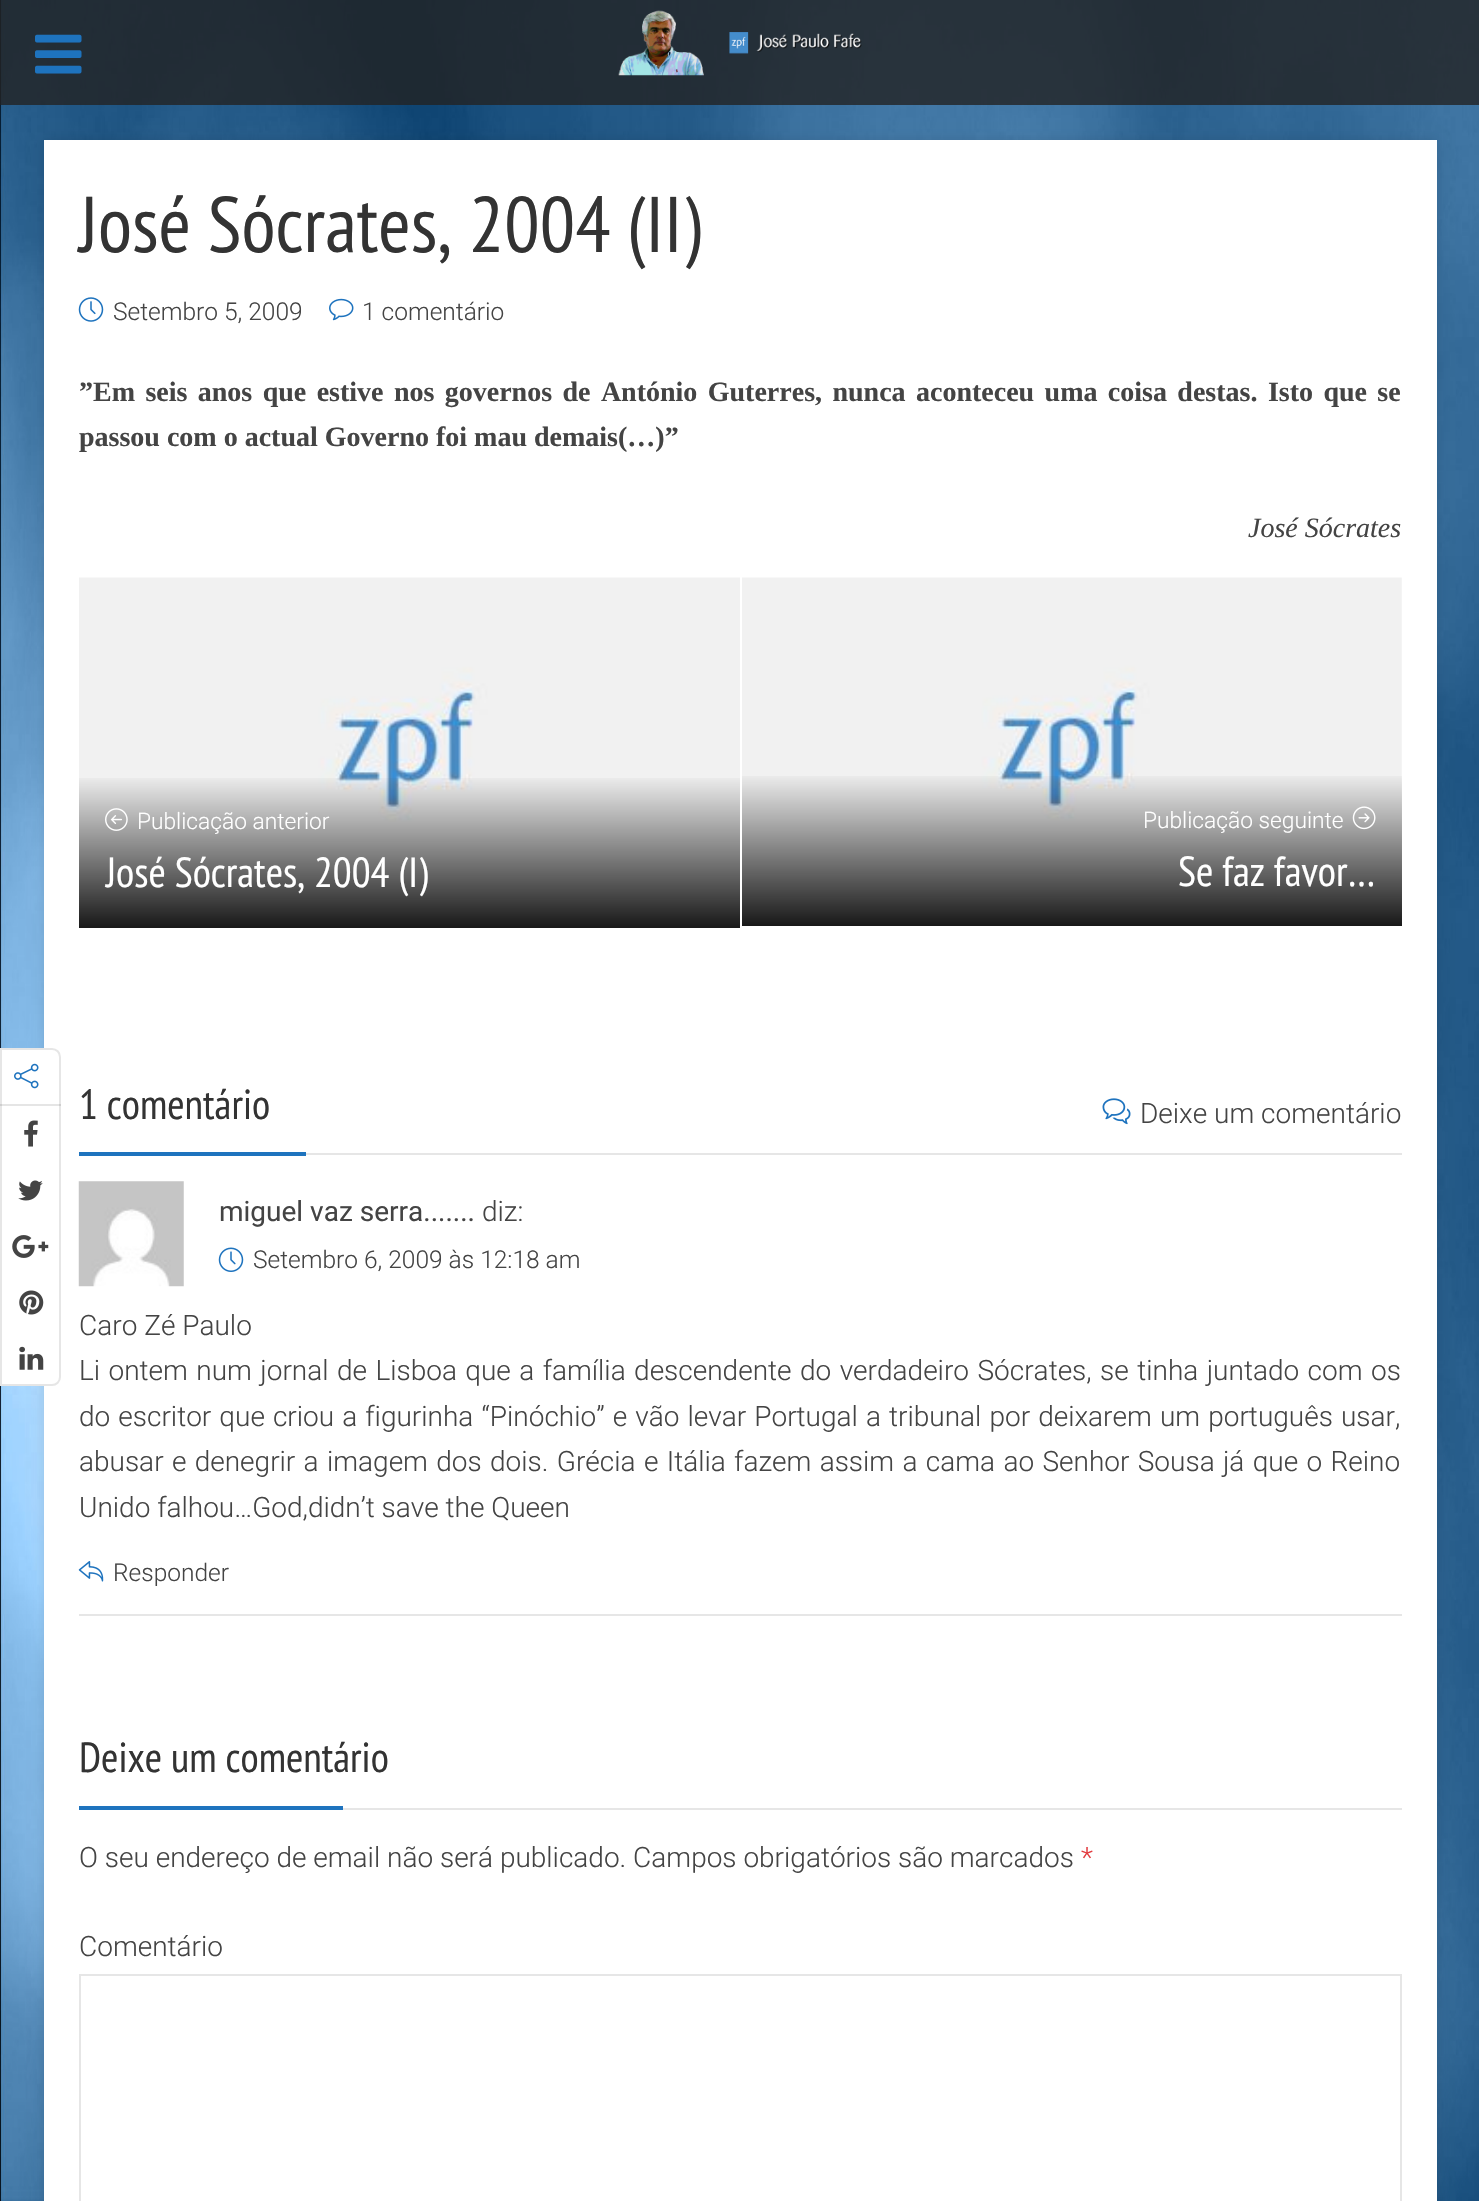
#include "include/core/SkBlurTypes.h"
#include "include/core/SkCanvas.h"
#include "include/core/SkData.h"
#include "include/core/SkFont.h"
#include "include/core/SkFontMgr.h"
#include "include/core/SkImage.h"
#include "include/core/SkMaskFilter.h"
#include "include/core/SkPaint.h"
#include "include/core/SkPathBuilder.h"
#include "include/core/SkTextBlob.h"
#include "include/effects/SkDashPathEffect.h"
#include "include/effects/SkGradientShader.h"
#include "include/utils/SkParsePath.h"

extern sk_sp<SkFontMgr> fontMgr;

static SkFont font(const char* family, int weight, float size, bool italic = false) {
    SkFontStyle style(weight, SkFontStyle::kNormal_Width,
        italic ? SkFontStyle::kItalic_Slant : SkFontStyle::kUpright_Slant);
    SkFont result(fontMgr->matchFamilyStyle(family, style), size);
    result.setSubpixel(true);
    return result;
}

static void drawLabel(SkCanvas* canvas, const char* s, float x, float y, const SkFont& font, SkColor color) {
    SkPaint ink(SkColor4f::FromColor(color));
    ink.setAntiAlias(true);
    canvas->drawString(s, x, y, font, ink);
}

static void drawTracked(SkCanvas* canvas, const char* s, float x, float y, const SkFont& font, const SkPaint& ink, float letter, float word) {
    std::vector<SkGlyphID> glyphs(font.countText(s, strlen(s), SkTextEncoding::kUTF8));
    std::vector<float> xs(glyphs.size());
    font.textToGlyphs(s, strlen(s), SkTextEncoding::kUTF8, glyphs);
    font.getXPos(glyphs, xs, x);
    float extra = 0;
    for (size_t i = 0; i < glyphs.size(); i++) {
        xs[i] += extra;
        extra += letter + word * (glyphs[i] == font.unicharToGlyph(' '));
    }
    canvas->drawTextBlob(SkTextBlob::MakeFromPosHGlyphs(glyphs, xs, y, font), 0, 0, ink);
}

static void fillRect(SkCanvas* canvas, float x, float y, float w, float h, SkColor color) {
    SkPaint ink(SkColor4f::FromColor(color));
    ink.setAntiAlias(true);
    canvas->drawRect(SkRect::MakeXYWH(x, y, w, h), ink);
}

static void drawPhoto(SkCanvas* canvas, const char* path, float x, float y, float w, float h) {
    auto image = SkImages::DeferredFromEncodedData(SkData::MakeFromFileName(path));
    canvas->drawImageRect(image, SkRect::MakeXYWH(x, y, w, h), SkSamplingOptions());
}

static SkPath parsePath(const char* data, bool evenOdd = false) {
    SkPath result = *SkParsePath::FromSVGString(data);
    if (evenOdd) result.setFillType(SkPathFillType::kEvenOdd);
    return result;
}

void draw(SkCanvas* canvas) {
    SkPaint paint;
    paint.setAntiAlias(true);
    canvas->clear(0xFFFFFFFF);
    drawPhoto(canvas, "assets/img1.png", 0, 0, 1479, 2201);
    fillRect(canvas, 0, 0, 1479, 105, 0xCC222222);
    drawPhoto(canvas, "assets/img2.png", 35, 34, 47, 40);
    drawPhoto(canvas, "assets/img3.png", 618, 10, 244, 66);
    paint.setColor(0x1A000000);
    paint.setMaskFilter(SkMaskFilter::MakeBlur(kNormal_SkBlurStyle, 6));
    canvas->drawRect(SkRect::MakeXYWH(44, 140, 1393, 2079), paint);
    paint.setMaskFilter(nullptr);
    fillRect(canvas, 44, 140, 1393, 2061, 0xFFFFFFFF);
    paint.setColor(0xFFFFFFFF);
    canvas->drawPath(parsePath("M1 1049H52C56.5 1049 60 1052.5 60 1057V1377C60 1381.5 56.5 1385 52 1385H1Z"), paint);
    paint.setStroke(true);
    paint.setStrokeWidth(2);
    paint.setColor(0xFFE6E6E6);
    canvas->drawPath(parsePath("M1 1049H52C56.5 1049 60 1052.5 60 1057V1377C60 1381.5 56.5 1385 52 1385H1Z"), paint);
    fillRect(canvas, 0, 1104, 61, 2, 0x1A000000);
    drawPhoto(canvas, "assets/img4.png", 14, 1063, 25, 26);
    drawPhoto(canvas, "assets/img5.png", 24, 1120, 14, 27);
    drawPhoto(canvas, "assets/img6.png", 18, 1180, 25, 21);
    drawPhoto(canvas, "assets/img7.png", 12, 1235, 37, 23);
    drawPhoto(canvas, "assets/img8.png", 19, 1290, 25, 25);
    drawPhoto(canvas, "assets/img9.png", 19, 1346, 25, 24);
    SkFont font1 = font("PT Sans Narrow", 400, 78.75f);
    drawLabel(canvas, "José Sócrates, 2004 (II)", 79, 252, font1, 0xFF333333);
    drawPhoto(canvas, "assets/img10.png", 78, 297, 26, 25);
    SkFont font2 = font("Roboto", 300, 24.5f);
    drawLabel(canvas, "Setembro 5, 2009", 113, 320, font2, 0xFF444444);
    drawPhoto(canvas, "assets/img11.png", 329, 298, 25, 23);
    drawLabel(canvas, "1 comentário", 362, 320, font2, 0xFF444444);
    SkFont font3 = font("Liberation Serif", 700, 28);
    paint.setStroke(false);
    paint.setColor(0xFF444444);
    drawTracked(canvas, "”Em seis anos que estive nos governos de António Guterres, nunca aconteceu uma coisa destas. Isto que se", 79, 401, font3, paint, 0, 3.4f);
    drawLabel(canvas, "passou com o actual Governo foi mau demais(…)”", 79, 446, font3, 0xFF444444);
    SkFont font4 = font("Liberation Serif", 400, 28, true);
    drawLabel(canvas, "José Sócrates", 1248, 537, font4, 0xFF444444);
    drawPhoto(canvas, "assets/img12.png", 79, 577, 661, 351);
    {
        const SkColor colors[] = {0x00000000, 0xE6000000};
        const float stops[] = {0, 1};
        const SkPoint ends[] = {{410, 774}, {410, 928}};
        paint.setShader(SkGradientShader::MakeLinear(ends, colors, stops, 2, SkTileMode::kClamp));
        paint.setAlpha(255);
    }
    canvas->drawRect(SkRect::MakeXYWH(79, 778, 661, 150), paint);
    drawPhoto(canvas, "assets/img13.png", 105, 808, 23, 23);
    SkFont font5 = font("Roboto", 300, 22.75f);
    drawLabel(canvas, "Publicação anterior", 137, 829, font5, 0xFFFFFFFF);
    SkFont font6 = font("PT Sans Narrow", 400, 42);
    drawLabel(canvas, "José Sócrates, 2004 (I)", 106, 887, font6, 0xFFFFFFFF);
    drawPhoto(canvas, "assets/img14.png", 742, 577, 660, 349);
    {
        const SkColor colors[] = {0x00000000, 0xE6000000};
        const float stops[] = {0, 1};
        const SkPoint ends[] = {{1072, 772}, {1072, 926}};
        paint.setShader(SkGradientShader::MakeLinear(ends, colors, stops, 2, SkTileMode::kClamp));
        paint.setAlpha(255);
    }
    canvas->drawRect(SkRect::MakeXYWH(742, 776, 660, 150), paint);
    drawLabel(canvas, "Publicação seguinte", 1143, 828, font5, 0xFFFFFFFF);
    drawPhoto(canvas, "assets/img15.png", 1352, 806, 24, 24);
    drawLabel(canvas, "Se faz favor…", 1178, 886, font6, 0xFFFFFFFF);
    fillRect(canvas, 306, 1153, 1096, 2, 0xFFE6E6E6);
    drawLabel(canvas, "1 comentário", 79, 1119, font6, 0xFF333333);
    fillRect(canvas, 79, 1152, 227, 4, 0xFF1E73BE);
    drawPhoto(canvas, "assets/img16.png", 1102, 1098, 29, 27);
    SkFont font7 = font("Roboto", 300, 28);
    drawLabel(canvas, "Deixe um comentário", 1140, 1123, font7, 0xFF444444);
    fillRect(canvas, 79, 1614, 1323, 2, 0xFFE6E6E6);
    drawPhoto(canvas, "assets/img17.png", 78, 1181, 106, 106);
    SkFont font8 = font("Roboto", 400, 28);
    drawLabel(canvas, "miguel vaz serra.......", 219, 1221, font8, 0xFF444444);
    drawLabel(canvas, "diz:", 482, 1221, font7, 0xFF444444);
    drawPhoto(canvas, "assets/img18.png", 218, 1247, 26, 25);
    drawLabel(canvas, "Setembro 6, 2009 às 12:18 am", 253, 1268, font2, 0xFF444444);
    drawLabel(canvas, "Caro Zé Paulo", 79, 1335, font7, 0xFF444444);
    paint.setShader(nullptr);
    paint.setColor(0xFF444444);
    drawTracked(canvas, "Li ontem num jornal de Lisboa que a família descendente do verdadeiro Sócrates, se tinha juntado com os", 79, 1380, font7, paint, 0, 1.6f);
    drawTracked(canvas, "do escritor que criou a figurinha “Pinóchio” e vão levar Portugal a tribunal por deixarem um português usar,", 79, 1426, font7, paint, 0, 1.25f);
    drawTracked(canvas, "abusar e denegrir a imagem dos dois. Grécia e Itália fazem assim a cama ao Senhor Sousa já que o Reino", 79, 1471, font7, paint, 0, 1.5f);
    drawLabel(canvas, "Unido falhou…God,didn’t save the Queen", 79, 1517, font7, 0xFF444444);
    drawPhoto(canvas, "assets/img19.png", 78, 1561, 26, 21);
    drawLabel(canvas, "Responder", 113, 1581, font2, 0xFF444444);
    fillRect(canvas, 343, 1808, 1059, 2, 0xFFE6E6E6);
    drawLabel(canvas, "Deixe um comentário", 79, 1772, font6, 0xFF333333);
    fillRect(canvas, 79, 1806, 264, 4, 0xFF1E73BE);
    drawLabel(canvas, "O seu endereço de email não será publicado. Campos obrigatórios são marcados", 79, 1867, font7, 0xFF444444);
    drawLabel(canvas, "*", 1081, 1867, font7, 0xFFE23A3E);
    drawLabel(canvas, "Comentário", 79, 1956, font7, 0xFF444444);
    paint.setStroke(true);
    paint.setColor(0xFFE6E6E6);
    canvas->drawRect(SkRect::MakeXYWH(80, 1975, 1321, 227), paint);
}
